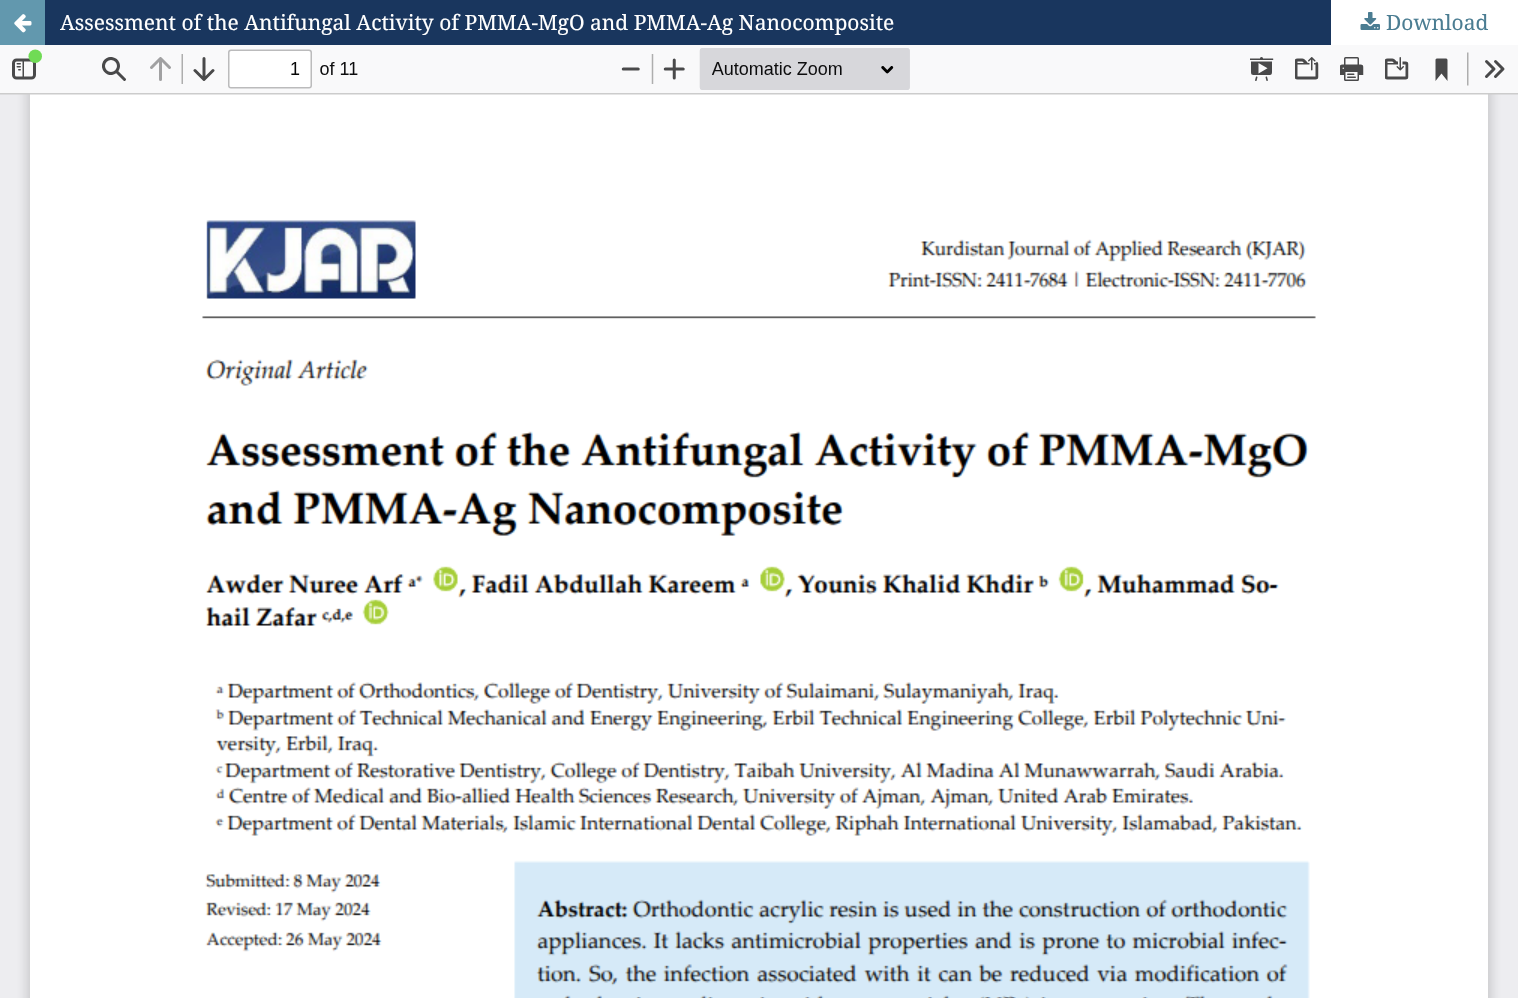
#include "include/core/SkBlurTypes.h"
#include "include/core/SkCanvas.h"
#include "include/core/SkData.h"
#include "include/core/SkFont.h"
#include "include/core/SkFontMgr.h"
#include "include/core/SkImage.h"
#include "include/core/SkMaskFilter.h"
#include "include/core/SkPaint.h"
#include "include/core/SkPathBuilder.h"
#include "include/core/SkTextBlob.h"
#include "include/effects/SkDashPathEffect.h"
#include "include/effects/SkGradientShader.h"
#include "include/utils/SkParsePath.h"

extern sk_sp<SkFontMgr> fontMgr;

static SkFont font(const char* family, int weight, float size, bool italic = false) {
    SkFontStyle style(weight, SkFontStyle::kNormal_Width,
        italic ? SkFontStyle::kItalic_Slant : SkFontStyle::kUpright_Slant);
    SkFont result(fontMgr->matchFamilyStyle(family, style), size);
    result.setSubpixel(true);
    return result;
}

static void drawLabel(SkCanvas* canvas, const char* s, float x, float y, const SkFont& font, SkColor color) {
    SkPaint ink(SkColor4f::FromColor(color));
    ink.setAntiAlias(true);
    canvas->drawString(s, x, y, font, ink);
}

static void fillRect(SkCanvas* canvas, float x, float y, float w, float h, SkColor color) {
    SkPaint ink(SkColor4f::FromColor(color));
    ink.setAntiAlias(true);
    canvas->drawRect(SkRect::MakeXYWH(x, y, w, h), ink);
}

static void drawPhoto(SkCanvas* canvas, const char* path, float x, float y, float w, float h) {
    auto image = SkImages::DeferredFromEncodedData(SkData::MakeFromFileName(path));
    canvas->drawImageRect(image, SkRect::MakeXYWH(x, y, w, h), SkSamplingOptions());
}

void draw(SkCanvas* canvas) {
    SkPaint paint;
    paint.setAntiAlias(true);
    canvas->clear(0xFFFFFFFF);
    fillRect(canvas, 45, 0, 1286, 45, 0xFF19365E);
    fillRect(canvas, 0, 0, 45, 45, 0xFF6298AE);
    drawPhoto(canvas, "assets/img1.png", 14, 14, 18, 19);
    SkFont font1 = font("Noto Serif", 400, 21);
    drawLabel(canvas, "Assessment of the Antifungal Activity of PMMA-MgO and PMMA-Ag Nanocomposite", 60, 30, font1, 0xFFFFFFFF);
    drawPhoto(canvas, "assets/img2.png", 1360, 12, 20, 18);
    drawLabel(canvas, "Download", 1386, 30, font1, 0xFF4B7D92);
    drawPhoto(canvas, "assets/img3.png", 0, 45, 1518, 953);
}
